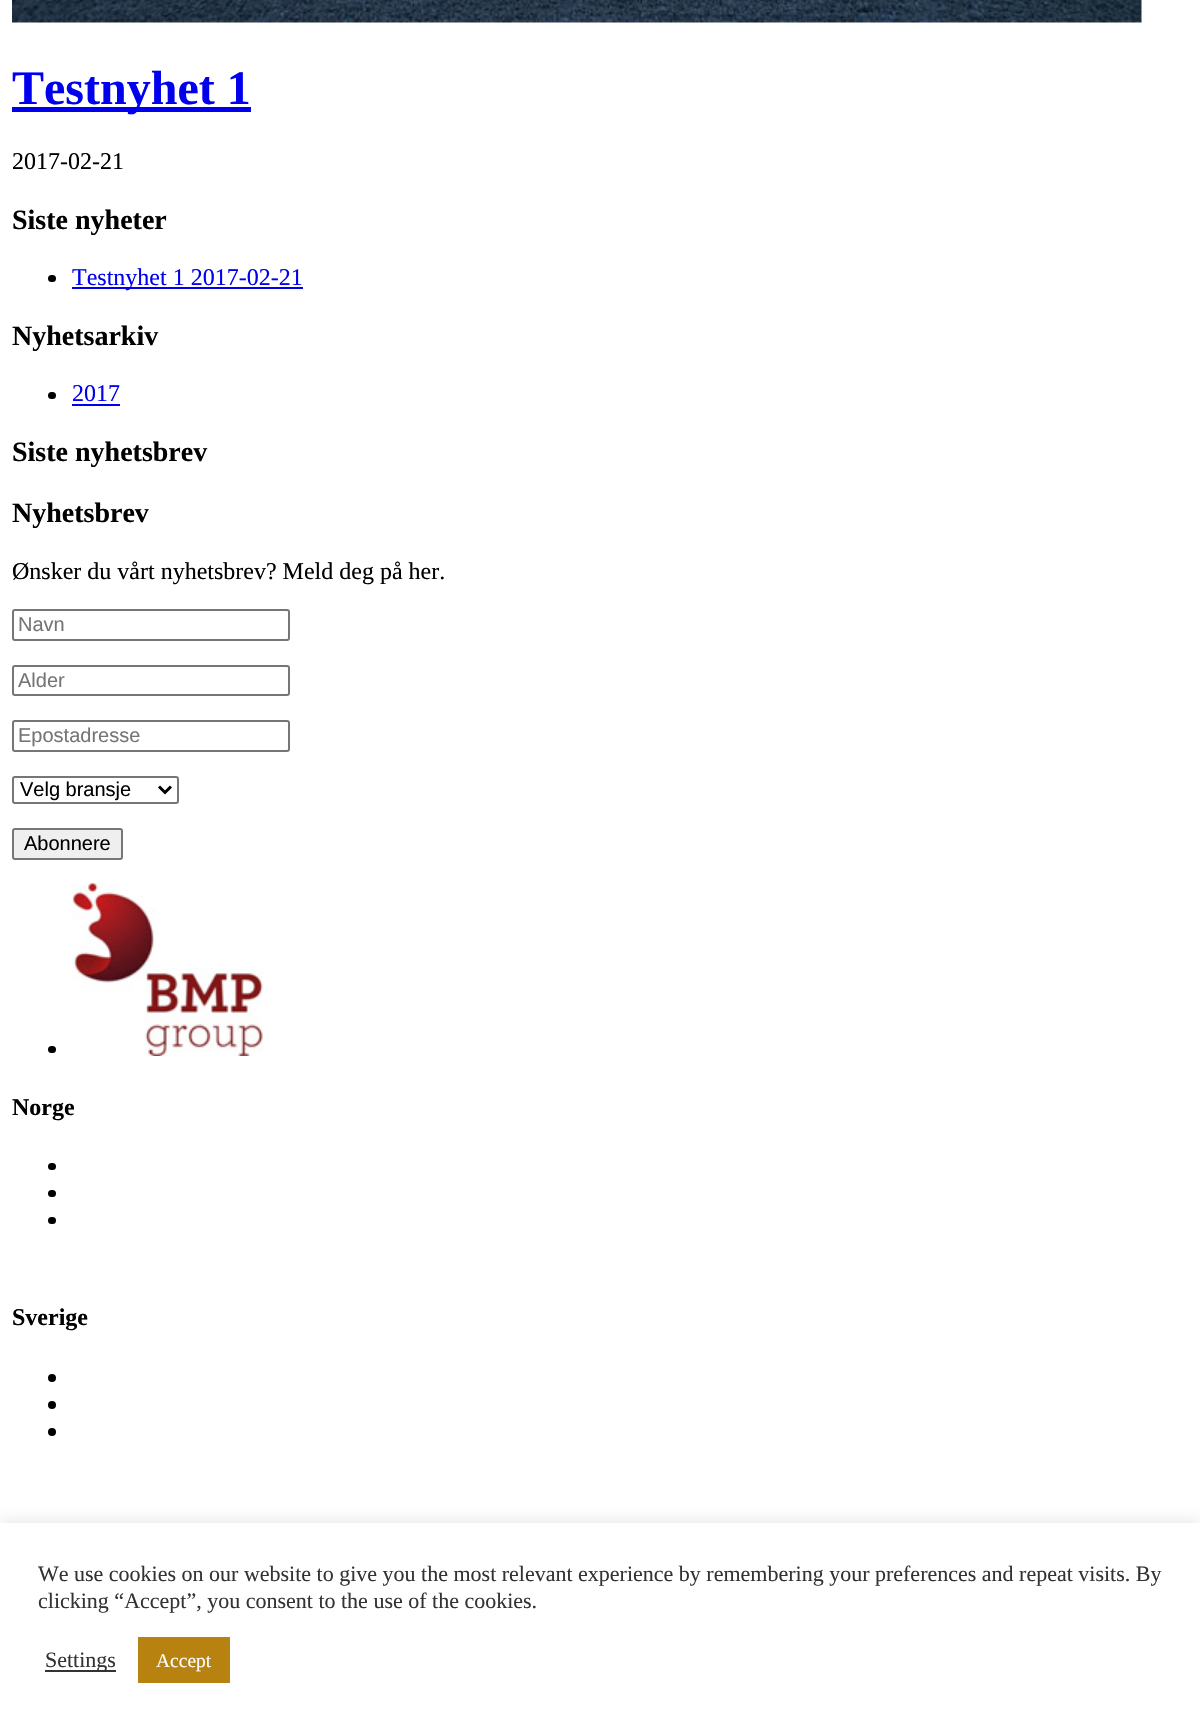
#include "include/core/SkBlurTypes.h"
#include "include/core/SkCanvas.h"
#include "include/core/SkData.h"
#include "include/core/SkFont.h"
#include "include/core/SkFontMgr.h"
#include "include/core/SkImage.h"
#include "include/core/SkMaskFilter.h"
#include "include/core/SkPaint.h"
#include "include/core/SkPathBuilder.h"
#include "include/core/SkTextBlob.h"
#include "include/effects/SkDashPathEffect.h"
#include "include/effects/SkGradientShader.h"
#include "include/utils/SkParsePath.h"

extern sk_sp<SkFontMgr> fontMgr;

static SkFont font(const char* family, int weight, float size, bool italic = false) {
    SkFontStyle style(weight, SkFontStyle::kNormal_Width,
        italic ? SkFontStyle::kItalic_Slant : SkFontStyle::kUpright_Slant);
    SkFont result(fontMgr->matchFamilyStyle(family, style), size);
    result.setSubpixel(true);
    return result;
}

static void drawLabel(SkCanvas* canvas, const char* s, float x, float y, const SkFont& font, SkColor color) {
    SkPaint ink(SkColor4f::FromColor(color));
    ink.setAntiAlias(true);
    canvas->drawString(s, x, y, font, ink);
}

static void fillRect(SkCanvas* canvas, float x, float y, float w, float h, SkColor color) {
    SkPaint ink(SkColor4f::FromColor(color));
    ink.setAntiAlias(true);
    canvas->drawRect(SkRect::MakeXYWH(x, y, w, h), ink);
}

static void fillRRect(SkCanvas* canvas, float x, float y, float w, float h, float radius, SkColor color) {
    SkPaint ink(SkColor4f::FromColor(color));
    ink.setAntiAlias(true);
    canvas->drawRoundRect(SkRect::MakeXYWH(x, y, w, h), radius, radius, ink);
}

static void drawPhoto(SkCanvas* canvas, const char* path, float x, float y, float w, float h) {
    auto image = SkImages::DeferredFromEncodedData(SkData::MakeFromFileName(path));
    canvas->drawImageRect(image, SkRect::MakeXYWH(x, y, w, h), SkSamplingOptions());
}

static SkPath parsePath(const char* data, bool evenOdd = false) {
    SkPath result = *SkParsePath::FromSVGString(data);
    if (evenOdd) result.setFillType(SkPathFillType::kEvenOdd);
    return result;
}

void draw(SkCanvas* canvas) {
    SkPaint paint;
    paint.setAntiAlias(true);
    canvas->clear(0xFFFFFFFF);
    drawPhoto(canvas, "assets/img1.png", 12, 0, 1130, 23);
    fillRect(canvas, 12, 107, 239, 5, 0xFF0000EE);
    SkFont font1 = font("Liberation Serif", 700, 48);
    drawLabel(canvas, "Testnyhet 1", 12, 104, font1, 0xFF0000EE);
    SkFont font2 = font("Liberation Serif", 400, 24);
    drawLabel(canvas, "2017-02-21", 12, 169, font2, 0xFF000000);
    SkFont font3 = font("Liberation Serif", 700, 28);
    drawLabel(canvas, "Siste nyheter", 12, 229, font3, 0xFF000000);
    fillRRect(canvas, 48, 275, 8, 7, 3.5f, 0xFF000000);
    fillRect(canvas, 72, 287, 231, 2, 0xFF0000EE);
    drawLabel(canvas, "Testnyhet 1 2017-02-21", 72, 285, font2, 0xFF0000EE);
    drawLabel(canvas, "Nyhetsarkiv", 12, 345, font3, 0xFF000000);
    fillRRect(canvas, 48, 392, 8, 7, 3.5f, 0xFF000000);
    drawLabel(canvas, "2017", 72, 401, font2, 0xFF0000EE);
    fillRect(canvas, 72, 404, 48, 2, 0xFF0000EE);
    drawLabel(canvas, "Siste nyhetsbrev", 12, 461, font3, 0xFF000000);
    drawLabel(canvas, "Nyhetsbrev", 12, 522, font3, 0xFF000000);
    drawLabel(canvas, "Ønsker du vårt nyhetsbrev? Meld deg på her.", 12, 579, font2, 0xFF000000);
    paint.setStroke(true);
    paint.setStrokeWidth(2);
    paint.setColor(0xFF767676);
    canvas->drawRoundRect(SkRect::MakeXYWH(13, 610, 276, 30), 2, 2, paint);
    SkFont font4 = font("Liberation Sans", 400, 20);
    drawLabel(canvas, "Navn", 18, 631, font4, 0xFF757575);
    canvas->drawRoundRect(SkRect::MakeXYWH(13, 666, 276, 29), 2, 2, paint);
    drawLabel(canvas, "Alder", 18, 687, font4, 0xFF757575);
    canvas->drawRoundRect(SkRect::MakeXYWH(13, 721, 276, 30), 2, 2, paint);
    drawLabel(canvas, "Epostadresse", 18, 742, font4, 0xFF757575);
    canvas->drawRoundRect(SkRect::MakeXYWH(13, 777, 165, 26), 2, 2, paint);
    paint.setStrokeWidth(3);
    paint.setColor(0xFF000000);
    canvas->drawPath(parsePath("M159 786.5L165 792.5L171 786.5"), paint);
    drawLabel(canvas, "Velg bransje", 20, 796, font4, 0xFF000000);
    paint.setStroke(false);
    paint.setColor(0xFFEFEFEF);
    canvas->drawRoundRect(SkRect::MakeXYWH(13, 829, 109, 30), 2, 2, paint);
    paint.setStroke(true);
    paint.setStrokeWidth(2);
    paint.setColor(0xFF767676);
    canvas->drawRoundRect(SkRect::MakeXYWH(13, 829, 109, 30), 2, 2, paint);
    drawLabel(canvas, "Abonnere", 24, 850, font4, 0xFF000000);
    fillRRect(canvas, 48, 1046, 8, 7, 3.5f, 0xFF000000);
    drawPhoto(canvas, "assets/img2.png", 72, 883, 191, 173);
    SkFont font5 = font("Liberation Serif", 700, 24);
    drawLabel(canvas, "Norge", 12, 1115, font5, 0xFF000000);
    fillRRect(canvas, 48, 1163, 8, 7, 3.5f, 0xFF000000);
    fillRRect(canvas, 48, 1190, 8, 7, 3.5f, 0xFF000000);
    fillRRect(canvas, 48, 1217, 8, 7, 3.5f, 0xFF000000);
    drawLabel(canvas, "Sverige", 12, 1325, font5, 0xFF000000);
    paint.setStroke(false);
    paint.setColor(0xFF000000);
    canvas->drawCircle(52, 1378, 4, paint);
    canvas->drawCircle(52, 1405, 4, paint);
    canvas->drawCircle(52, 1432, 4, paint);
    paint.setColor(0x4DACABAB);
    paint.setMaskFilter(SkMaskFilter::MakeBlur(kNormal_SkBlurStyle, 7.5f));
    canvas->drawRect(SkRect::MakeXYWH(0, 1521, 1200, 206), paint);
    paint.setMaskFilter(nullptr);
    fillRect(canvas, 0, 1523, 1200, 204, 0xFFFFFFFF);
    SkFont font6 = font("Liberation Serif", 400, 22);
    drawLabel(canvas, "We use cookies on our website to give you the most relevant experience by remembering your preferences and repeat visits. By", 38, 1581, font6, 0xFF333333);
    drawLabel(canvas, "clicking “Accept”, you consent to the use of the cookies.", 38, 1608, font6, 0xFF333333);
    fillRect(canvas, 45, 1670, 71, 2, 0xFF333333);
    drawLabel(canvas, "Settings", 45, 1667, font6, 0xFF333333);
    fillRect(canvas, 138, 1637, 92, 46, 0xFFB78210);
    SkFont font7 = font("Liberation Serif", 400, 19.5f);
    drawLabel(canvas, "Accept", 156, 1667, font7, 0xFFFFFFFF);
}
